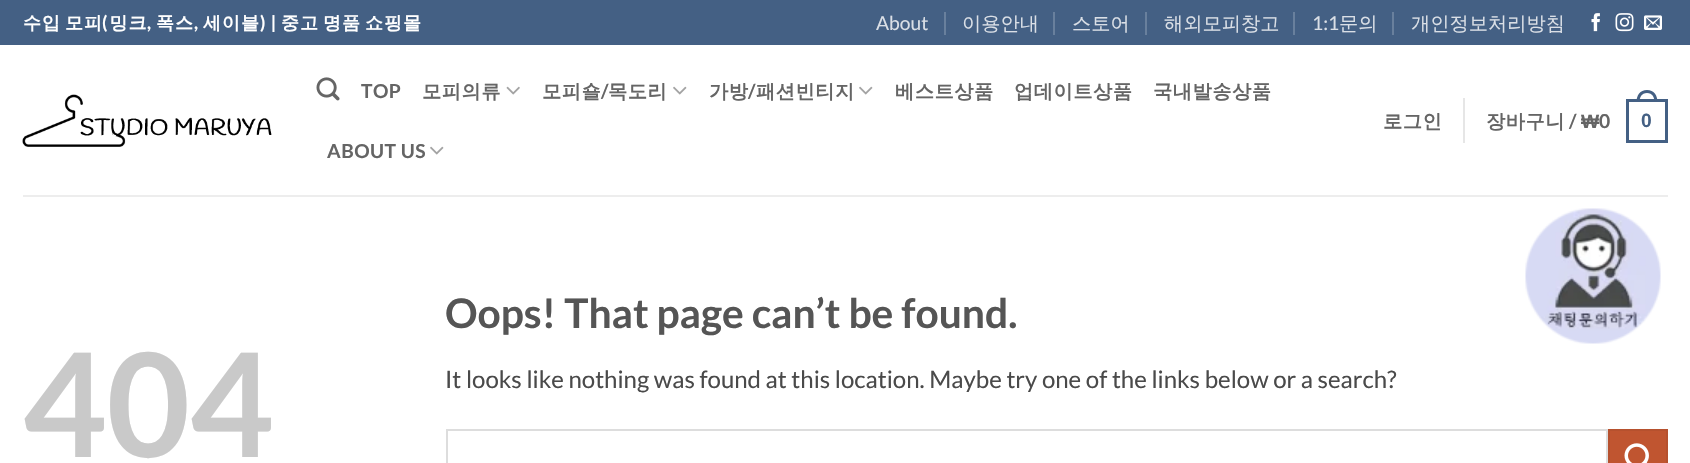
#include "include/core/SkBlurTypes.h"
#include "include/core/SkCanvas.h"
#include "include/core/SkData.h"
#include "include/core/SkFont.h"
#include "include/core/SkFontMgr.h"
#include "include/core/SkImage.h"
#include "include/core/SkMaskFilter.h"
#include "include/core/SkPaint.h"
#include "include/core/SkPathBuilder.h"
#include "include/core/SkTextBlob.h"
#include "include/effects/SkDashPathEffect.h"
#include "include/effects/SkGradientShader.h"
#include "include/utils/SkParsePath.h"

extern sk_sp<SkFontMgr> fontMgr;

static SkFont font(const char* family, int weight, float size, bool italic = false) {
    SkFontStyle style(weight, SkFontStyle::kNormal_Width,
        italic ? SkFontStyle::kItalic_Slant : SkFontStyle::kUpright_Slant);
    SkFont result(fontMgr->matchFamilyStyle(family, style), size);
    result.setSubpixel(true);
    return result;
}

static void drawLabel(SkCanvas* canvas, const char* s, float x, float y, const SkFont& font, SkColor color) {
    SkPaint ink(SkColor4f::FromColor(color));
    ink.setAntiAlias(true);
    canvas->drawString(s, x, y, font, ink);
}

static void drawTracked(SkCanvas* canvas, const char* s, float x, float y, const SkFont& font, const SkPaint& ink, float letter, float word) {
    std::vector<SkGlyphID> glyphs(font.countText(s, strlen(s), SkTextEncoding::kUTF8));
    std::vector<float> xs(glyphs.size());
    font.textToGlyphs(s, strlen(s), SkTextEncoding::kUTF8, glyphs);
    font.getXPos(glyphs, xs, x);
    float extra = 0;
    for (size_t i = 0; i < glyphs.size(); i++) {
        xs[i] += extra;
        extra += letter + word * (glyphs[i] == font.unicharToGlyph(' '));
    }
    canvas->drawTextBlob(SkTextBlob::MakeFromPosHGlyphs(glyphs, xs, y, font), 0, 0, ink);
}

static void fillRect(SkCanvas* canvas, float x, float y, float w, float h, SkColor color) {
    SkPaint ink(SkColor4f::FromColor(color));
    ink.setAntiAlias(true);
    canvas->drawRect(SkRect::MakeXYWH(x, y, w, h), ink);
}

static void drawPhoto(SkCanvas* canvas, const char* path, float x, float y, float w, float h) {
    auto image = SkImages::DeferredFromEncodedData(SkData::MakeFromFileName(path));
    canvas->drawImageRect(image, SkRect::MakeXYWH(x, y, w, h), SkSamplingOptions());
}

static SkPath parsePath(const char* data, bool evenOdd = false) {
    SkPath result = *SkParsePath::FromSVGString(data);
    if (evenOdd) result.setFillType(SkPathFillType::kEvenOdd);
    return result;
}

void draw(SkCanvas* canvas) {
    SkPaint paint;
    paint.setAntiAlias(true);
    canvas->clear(0xFFFFFFFF);
    fillRect(canvas, 0, 0, 1690, 45, 0xFF446084);
    SkFont font1 = font("WenQuanYi Zen Hei", 700, 18);
    paint.setColor(0xFFFFFFFF);
    drawTracked(canvas, "수입", 23, 29, font1, paint, 1, 0);
    drawTracked(canvas, "모피 밍크", 65, 29, font1, paint, 1, 0);
    SkFont font2 = font("Lato", 700, 18);
    drawTracked(canvas, "(", 102, 29, font2, paint, 1, 0);
    drawTracked(canvas, ") |", 260, 29, font2, paint, 1, 0);
    drawTracked(canvas, ",", 147, 29, font2, paint, 1, 0);
    drawTracked(canvas, "폭스", 156, 29, font1, paint, 1, 0);
    drawTracked(canvas, ",", 194, 29, font2, paint, 1, 0);
    drawTracked(canvas, "세이블", 203, 29, font1, paint, 1, 0);
    drawTracked(canvas, "중고", 281, 29, font1, paint, 1, 0);
    drawTracked(canvas, "명품", 323, 29, font1, paint, 1, 0);
    drawTracked(canvas, "쇼핑몰", 365, 29, font1, paint, 1, 0);
    SkFont font3 = font("Lato", 400, 19.25f);
    drawLabel(canvas, "About", 876, 30, font3, 0xFFDADFE6);
    fillRect(canvas, 944, 12, 2, 23, 0xFF69809D);
    SkFont font4 = font("WenQuanYi Zen Hei", 500, 19.25f);
    drawLabel(canvas, "이용안내", 962, 30, font4, 0xFFDADFE6);
    fillRect(canvas, 1053, 12, 2, 23, 0xFF69809D);
    drawLabel(canvas, "스토어", 1072, 30, font4, 0xFFDADFE6);
    fillRect(canvas, 1145, 12, 2, 23, 0xFF69809D);
    drawLabel(canvas, "해외모피창고", 1164, 30, font4, 0xFFDADFE6);
    fillRect(canvas, 1293, 12, 2, 23, 0xFF69809D);
    drawLabel(canvas, "1:1", 1312, 30, font3, 0xFFDADFE6);
    drawLabel(canvas, "문의", 1339, 30, font4, 0xFFDADFE6);
    fillRect(canvas, 1392, 12, 2, 23, 0xFF69809D);
    drawLabel(canvas, "개인정보처리방침", 1411, 30, font4, 0xFFDADFE6);
    drawPhoto(canvas, "assets/img1.png", 1591, 13, 9, 19);
    drawPhoto(canvas, "assets/img2.png", 1615, 13, 19, 19);
    drawPhoto(canvas, "assets/img3.png", 1644, 15, 18, 15);
    drawPhoto(canvas, "assets/img4.png", 22, 94, 250, 53);
    drawPhoto(canvas, "assets/img5.png", 316, 77, 24, 24);
    SkFont font5 = font("Lato", 700, 19.25f);
    paint.setColor(0xFF656565);
    drawTracked(canvas, "TOP", 361, 98, font5, paint, 0.5f, 0);
    SkFont font6 = font("WenQuanYi Zen Hei", 700, 19.25f);
    drawTracked(canvas, "모피의류", 422, 98, font6, paint, 0.5f, 0);
    drawPhoto(canvas, "assets/img6.png", 506, 86, 14, 9);
    drawTracked(canvas, "모피숄", 542, 98, font6, paint, 0.5f, 0);
    drawTracked(canvas, "/", 601, 98, font5, paint, 0.5f, 0);
    drawTracked(canvas, "목도리", 608, 98, font6, paint, 0.5f, 0);
    drawPhoto(canvas, "assets/img7.png", 673, 86, 14, 9);
    drawTracked(canvas, "가방", 709, 98, font6, paint, 0.5f, 0);
    drawTracked(canvas, "/", 748, 98, font5, paint, 0.5f, 0);
    drawTracked(canvas, "패션빈티지", 756, 98, font6, paint, 0.5f, 0);
    drawPhoto(canvas, "assets/img7.png", 859, 86, 14, 9);
    drawTracked(canvas, "베스트상품", 895, 98, font6, paint, 0.5f, 0);
    drawTracked(canvas, "업데이트상품", 1014, 98, font6, paint, 0.5f, 0);
    drawTracked(canvas, "국내발송상품", 1153, 98, font6, paint, 0.5f, 0);
    drawTracked(canvas, "ABOUT US", 327, 158, font5, paint, 0.5f, 0);
    drawPhoto(canvas, "assets/img7.png", 430, 146, 14, 9);
    drawTracked(canvas, "로그인", 1383, 128, font6, paint, 0.5f, 0);
    fillRect(canvas, 1463, 98, 2, 45, 0xFFE6E6E6);
    drawTracked(canvas, "장바구니", 1486, 128, font6, paint, 0.5f, 0);
    drawTracked(canvas, "/", 1569, 128, font5, paint, 0.5f, 0);
    SkFont font7 = font("Liberation Sans", 700, 19.25f);
    drawTracked(canvas, "₩", 1581, 128, font7, paint, 0.5f, 0);
    drawTracked(canvas, "0", 1599, 128, font5, paint, 0.5f, 0);
    paint.setStroke(true);
    paint.setStrokeWidth(3);
    paint.setColor(0xFF446084);
    canvas->drawRect(SkRect::MakeXYWH(1627.5f, 100.5f, 39, 41), paint);
    paint.setStroke(false);
    canvas->drawPath(parsePath("M1647 90C1654 90 1657.5 95.5 1657.5 102H1636.5C1636.5 95.5 1640 90 1647 90ZM1647 93C1652.5 93 1654.5 97.5 1654.5 102H1639.5C1639.5 97.5 1641.5 93 1647 93Z", true), paint);
    drawTracked(canvas, "0", 1641, 127, font7, paint, 0.5f, 0);
    fillRect(canvas, 23, 195, 1645, 2, 0xFFEDEDED);
    drawPhoto(canvas, "assets/img8.png", 1525, 208, 136, 136);
    SkFont font8 = font("Lato", 700, 144);
    drawLabel(canvas, "404", 23, 457, font8, 0xFFC9C9C9);
    SkFont font9 = font("Lato", 700, 40.75f);
    drawLabel(canvas, "Oops! That page can’t be found.", 445, 328, font9, 0xFF555555);
    SkFont font10 = font("Lato", 400, 24);
    drawLabel(canvas, "It looks like nothing was found at this location. Maybe try one of the links below or a search?", 445, 388, font10, 0xFF4A4A4A);
    paint.setStroke(true);
    paint.setStrokeWidth(2);
    paint.setColor(0xFFDDDDDD);
    canvas->drawRect(SkRect::MakeXYWH(447, 430, 1160, 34), paint);
    paint.setStroke(false);
    paint.setColor(0xFFC05530);
    canvas->drawRect(SkRect::MakeXYWH(1609, 430, 58, 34), paint);
    paint.setStroke(true);
    paint.setColor(0xFFB6512E);
    canvas->drawRect(SkRect::MakeXYWH(1609, 430, 58, 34), paint);
    drawPhoto(canvas, "assets/img9.png", 1624, 443, 25, 20);
}
